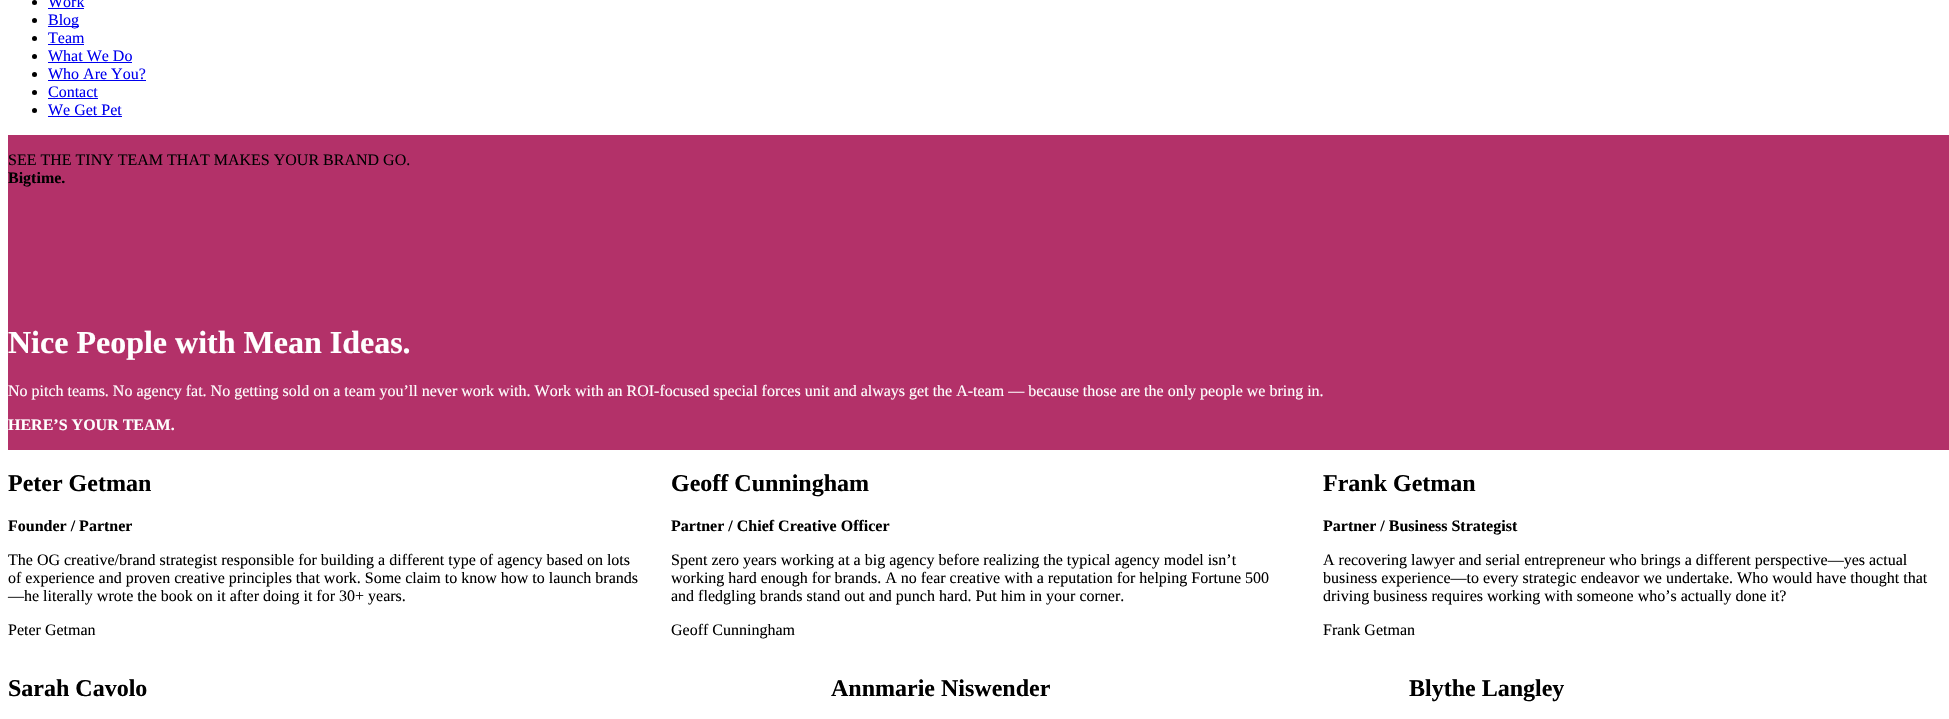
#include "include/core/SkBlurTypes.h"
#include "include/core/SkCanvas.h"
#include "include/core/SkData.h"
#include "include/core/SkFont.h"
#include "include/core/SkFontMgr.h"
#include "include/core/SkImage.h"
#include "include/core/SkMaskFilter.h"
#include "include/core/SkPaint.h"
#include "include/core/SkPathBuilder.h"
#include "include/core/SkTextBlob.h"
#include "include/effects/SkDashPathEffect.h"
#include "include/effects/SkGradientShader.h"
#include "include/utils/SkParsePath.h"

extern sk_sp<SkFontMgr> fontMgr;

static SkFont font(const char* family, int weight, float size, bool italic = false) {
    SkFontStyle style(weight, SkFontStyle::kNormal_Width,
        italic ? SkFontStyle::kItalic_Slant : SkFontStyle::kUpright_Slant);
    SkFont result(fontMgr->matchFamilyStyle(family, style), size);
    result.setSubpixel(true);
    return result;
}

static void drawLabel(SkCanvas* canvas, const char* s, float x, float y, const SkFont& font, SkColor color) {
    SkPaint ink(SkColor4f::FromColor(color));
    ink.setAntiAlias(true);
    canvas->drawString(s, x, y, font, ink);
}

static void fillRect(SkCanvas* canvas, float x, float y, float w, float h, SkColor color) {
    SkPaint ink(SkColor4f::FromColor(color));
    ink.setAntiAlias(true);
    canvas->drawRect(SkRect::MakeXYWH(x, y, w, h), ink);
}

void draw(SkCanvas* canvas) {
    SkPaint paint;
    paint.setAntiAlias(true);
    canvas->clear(0xFFFFFFFF);
    paint.setColor(0xFF000000);
    canvas->drawCircle(34.5f, 2.5f, 2.5f, paint);
    SkFont font1 = font("Liberation Serif", 400, 16);
    drawLabel(canvas, "Work", 48, 7, font1, 0xFF0000EE);
    fillRect(canvas, 48, 8, 36, 1, 0xFF0000EE);
    canvas->drawCircle(34.5f, 20.5f, 2.5f, paint);
    fillRect(canvas, 48, 26, 31, 1, 0xFF0000EE);
    drawLabel(canvas, "Blog", 48, 25, font1, 0xFF0000EE);
    canvas->drawCircle(34.5f, 38.5f, 2.5f, paint);
    drawLabel(canvas, "Team", 48, 43, font1, 0xFF0000EE);
    fillRect(canvas, 48, 44, 36, 1, 0xFF0000EE);
    canvas->drawCircle(34.5f, 56.5f, 2.5f, paint);
    drawLabel(canvas, "What We Do", 48, 61, font1, 0xFF0000EE);
    fillRect(canvas, 48, 62, 84, 1, 0xFF0000EE);
    canvas->drawCircle(34.5f, 74.5f, 2.5f, paint);
    drawLabel(canvas, "Who Are You?", 48, 79, font1, 0xFF0000EE);
    fillRect(canvas, 48, 80, 98, 1, 0xFF0000EE);
    canvas->drawCircle(34.5f, 92.5f, 2.5f, paint);
    drawLabel(canvas, "Contact", 48, 97, font1, 0xFF0000EE);
    fillRect(canvas, 48, 98, 50, 1, 0xFF0000EE);
    canvas->drawCircle(34.5f, 110.5f, 2.5f, paint);
    drawLabel(canvas, "We Get Pet", 48, 115, font1, 0xFF0000EE);
    fillRect(canvas, 48, 116, 74, 1, 0xFF0000EE);
    fillRect(canvas, 8, 135, 1941, 315, 0xFFB33169);
    drawLabel(canvas, "SEE THE TINY TEAM THAT MAKES YOUR BRAND GO.", 8, 165, font1, 0xFF000000);
    SkFont font2 = font("Liberation Serif", 700, 16);
    drawLabel(canvas, "Bigtime.", 8, 183, font2, 0xFF000000);
    SkFont font3 = font("Liberation Serif", 700, 32);
    drawLabel(canvas, "Nice People with Mean Ideas.", 8, 353, font3, 0xFFFFFFFF);
    drawLabel(canvas, "No pitch teams. No agency fat. No getting sold on a team you’ll never work with. Work with an ROI-focused special forces unit and always get the A-team — because those are the only people we bring in.", 8, 396, font1, 0xFFFFFFFF);
    drawLabel(canvas, "HERE’S YOUR TEAM.", 8, 430, font2, 0xFFFFFFFF);
    SkFont font4 = font("Liberation Serif", 700, 24);
    drawLabel(canvas, "Peter Getman", 8, 491, font4, 0xFF000000);
    drawLabel(canvas, "Founder / Partner", 8, 531, font2, 0xFF000000);
    drawLabel(canvas, "The OG creative/brand strategist responsible for building a different type of agency based on lots", 8, 565, font1, 0xFF000000);
    drawLabel(canvas, "of experience and proven creative principles that work. Some claim to know how to launch brands", 8, 583, font1, 0xFF000000);
    drawLabel(canvas, "—he literally wrote the book on it after doing it for 30+ years.", 8, 601, font1, 0xFF000000);
    drawLabel(canvas, "Peter Getman", 8, 635, font1, 0xFF000000);
    drawLabel(canvas, "Geoff Cunningham", 671, 491, font4, 0xFF000000);
    drawLabel(canvas, "Partner / Chief Creative Officer", 671, 531, font2, 0xFF000000);
    drawLabel(canvas, "Spent zero years working at a big agency before realizing the typical agency model isn’t", 671, 565, font1, 0xFF000000);
    drawLabel(canvas, "working hard enough for brands. A no fear creative with a reputation for helping Fortune 500", 671, 583, font1, 0xFF000000);
    drawLabel(canvas, "and fledgling brands stand out and punch hard. Put him in your corner.", 671, 601, font1, 0xFF000000);
    drawLabel(canvas, "Geoff Cunningham", 671, 635, font1, 0xFF000000);
    drawLabel(canvas, "Frank Getman", 1323, 491, font4, 0xFF000000);
    drawLabel(canvas, "Partner / Business Strategist", 1323, 531, font2, 0xFF000000);
    drawLabel(canvas, "A recovering lawyer and serial entrepreneur who brings a different perspective—yes actual", 1323, 565, font1, 0xFF000000);
    drawLabel(canvas, "business experience—to every strategic endeavor we undertake. Who would have thought that", 1323, 583, font1, 0xFF000000);
    drawLabel(canvas, "driving business requires working with someone who’s actually done it?", 1323, 601, font1, 0xFF000000);
    drawLabel(canvas, "Frank Getman", 1323, 635, font1, 0xFF000000);
    drawLabel(canvas, "Sarah Cavolo", 8, 696, font4, 0xFF000000);
    drawLabel(canvas, "Annmarie Niswender", 831, 696, font4, 0xFF000000);
    drawLabel(canvas, "Blythe Langley", 1409, 696, font4, 0xFF000000);
}
